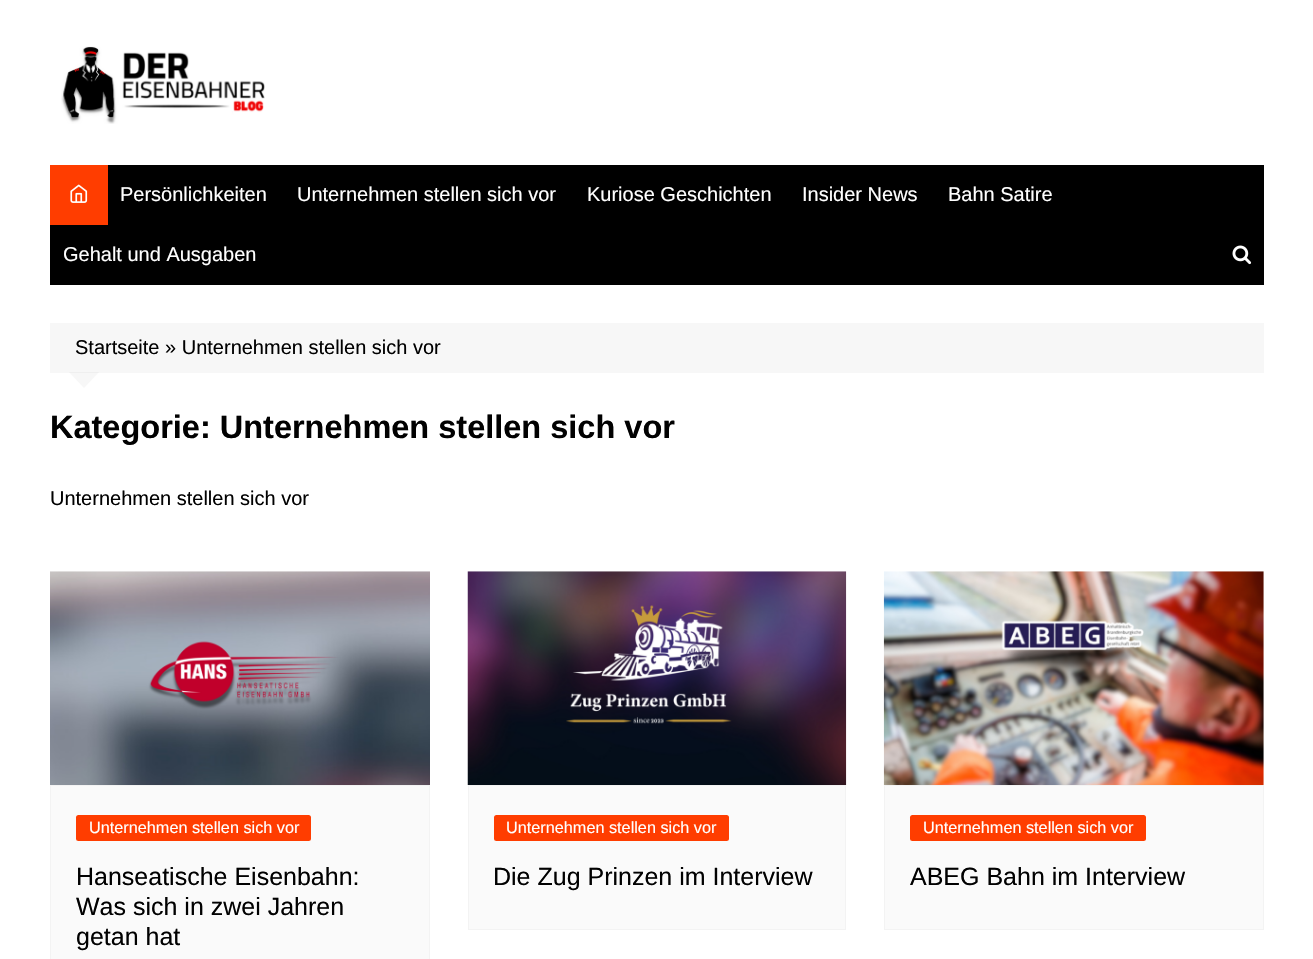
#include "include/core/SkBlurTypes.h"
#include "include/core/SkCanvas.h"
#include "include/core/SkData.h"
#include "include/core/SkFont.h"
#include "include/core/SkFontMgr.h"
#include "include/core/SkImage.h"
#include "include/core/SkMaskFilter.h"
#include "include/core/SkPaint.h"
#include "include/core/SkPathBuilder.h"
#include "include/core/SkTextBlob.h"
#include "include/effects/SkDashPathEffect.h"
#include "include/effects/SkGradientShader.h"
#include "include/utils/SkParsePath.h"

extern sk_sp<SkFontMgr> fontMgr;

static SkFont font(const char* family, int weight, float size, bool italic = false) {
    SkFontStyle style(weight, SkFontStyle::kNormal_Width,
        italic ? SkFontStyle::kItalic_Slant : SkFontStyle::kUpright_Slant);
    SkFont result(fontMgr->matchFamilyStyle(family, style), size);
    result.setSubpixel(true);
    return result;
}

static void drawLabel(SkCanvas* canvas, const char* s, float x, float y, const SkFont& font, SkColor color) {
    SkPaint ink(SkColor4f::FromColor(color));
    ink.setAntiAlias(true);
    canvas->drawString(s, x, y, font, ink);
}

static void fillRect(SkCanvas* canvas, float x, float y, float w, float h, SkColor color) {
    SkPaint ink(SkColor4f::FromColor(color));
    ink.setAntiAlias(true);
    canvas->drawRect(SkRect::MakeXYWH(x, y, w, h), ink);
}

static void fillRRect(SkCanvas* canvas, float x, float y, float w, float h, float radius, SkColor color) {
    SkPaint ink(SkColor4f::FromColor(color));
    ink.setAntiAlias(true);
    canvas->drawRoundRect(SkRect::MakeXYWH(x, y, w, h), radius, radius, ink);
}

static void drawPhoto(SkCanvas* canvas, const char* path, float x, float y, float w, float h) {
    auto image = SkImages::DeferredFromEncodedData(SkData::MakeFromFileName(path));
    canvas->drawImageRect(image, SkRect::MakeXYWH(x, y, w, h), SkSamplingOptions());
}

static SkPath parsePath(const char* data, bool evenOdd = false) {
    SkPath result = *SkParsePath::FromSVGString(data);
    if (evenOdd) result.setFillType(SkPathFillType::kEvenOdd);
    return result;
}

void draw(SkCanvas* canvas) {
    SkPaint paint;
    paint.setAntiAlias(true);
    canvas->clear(0xFFFFFFFF);
    drawPhoto(canvas, "assets/img1.png", 61, 46, 204, 78);
    fillRect(canvas, 50, 165, 1214, 120, 0xFF000000);
    fillRect(canvas, 50, 165, 58, 60, 0xFFFF3D00);
    drawPhoto(canvas, "assets/img2.png", 70, 184, 18, 19);
    SkFont font1 = font("Liberation Sans", 400, 20);
    drawLabel(canvas, "Persönlichkeiten", 120, 201, font1, 0xFFFFFFFF);
    drawLabel(canvas, "Unternehmen stellen sich vor", 297, 201, font1, 0xFFFFFFFF);
    drawLabel(canvas, "Kuriose Geschichten", 587, 201, font1, 0xFFFFFFFF);
    drawLabel(canvas, "Insider News", 802, 201, font1, 0xFFFFFFFF);
    drawLabel(canvas, "Bahn Satire", 948, 201, font1, 0xFFFFFFFF);
    drawLabel(canvas, "Gehalt und Ausgaben", 63, 261, font1, 0xFFFFFFFF);
    drawPhoto(canvas, "assets/img3.png", 1232, 245, 20, 20);
    fillRect(canvas, 50, 323, 1214, 50, 0xFFF7F7F7);
    drawLabel(canvas, "Startseite » Unternehmen stellen sich vor", 75, 354, font1, 0xFF010101);
    paint.setColor(0x08000000);
    canvas->drawPath(parsePath("M69 372H99L84 388Z"), paint);
    SkFont font2 = font("Liberation Sans", 700, 32.5f);
    drawLabel(canvas, "Kategorie: Unternehmen stellen sich vor", 50, 438, font2, 0xFF010101);
    drawLabel(canvas, "Unternehmen stellen sich vor", 50, 505, font1, 0xFF010101);
    drawPhoto(canvas, "assets/img4.png", 50, 571, 380, 214);
    paint.setColor(0xFFFAFAFA);
    canvas->drawRect(SkRect::MakeXYWH(50.5f, 785.5f, 379, 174), paint);
    paint.setStroke(true);
    paint.setStrokeWidth(1);
    paint.setColor(0xFFF3F3F3);
    canvas->drawRect(SkRect::MakeXYWH(50.5f, 785.5f, 379, 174), paint);
    fillRRect(canvas, 76, 815, 235, 26, 2.5f, 0xFFFF3D00);
    SkFont font3 = font("Liberation Sans", 400, 16.25f);
    drawLabel(canvas, "Unternehmen stellen sich vor", 89, 833, font3, 0xFFFFFFFF);
    SkFont font4 = font("Liberation Sans", 400, 25);
    drawLabel(canvas, "Hanseatische Eisenbahn:", 76, 885, font4, 0xFF010101);
    drawLabel(canvas, "Was sich in zwei Jahren", 76, 915, font4, 0xFF010101);
    drawLabel(canvas, "getan hat", 76, 945, font4, 0xFF010101);
    drawPhoto(canvas, "assets/img5.png", 467, 571, 380, 214);
    paint.setStroke(false);
    paint.setColor(0xFFFAFAFA);
    canvas->drawRect(SkRect::MakeXYWH(468.5f, 785.5f, 377, 144), paint);
    paint.setStroke(true);
    paint.setColor(0xFFF3F3F3);
    canvas->drawRect(SkRect::MakeXYWH(468.5f, 785.5f, 377, 144), paint);
    fillRRect(canvas, 494, 815, 235, 26, 2.5f, 0xFFFF3D00);
    drawLabel(canvas, "Unternehmen stellen sich vor", 506, 833, font3, 0xFFFFFFFF);
    drawLabel(canvas, "Die Zug Prinzen im Interview", 493, 885, font4, 0xFF010101);
    drawPhoto(canvas, "assets/img6.png", 883, 571, 381, 214);
    paint.setStroke(false);
    paint.setColor(0xFFFAFAFA);
    canvas->drawRect(SkRect::MakeXYWH(884.5f, 785.5f, 379, 144), paint);
    paint.setStroke(true);
    paint.setColor(0xFFF3F3F3);
    canvas->drawRect(SkRect::MakeXYWH(884.5f, 785.5f, 379, 144), paint);
    fillRRect(canvas, 910, 815, 236, 26, 2.5f, 0xFFFF3D00);
    drawLabel(canvas, "Unternehmen stellen sich vor", 923, 833, font3, 0xFFFFFFFF);
    drawLabel(canvas, "ABEG Bahn im Interview", 910, 885, font4, 0xFF010101);
}
